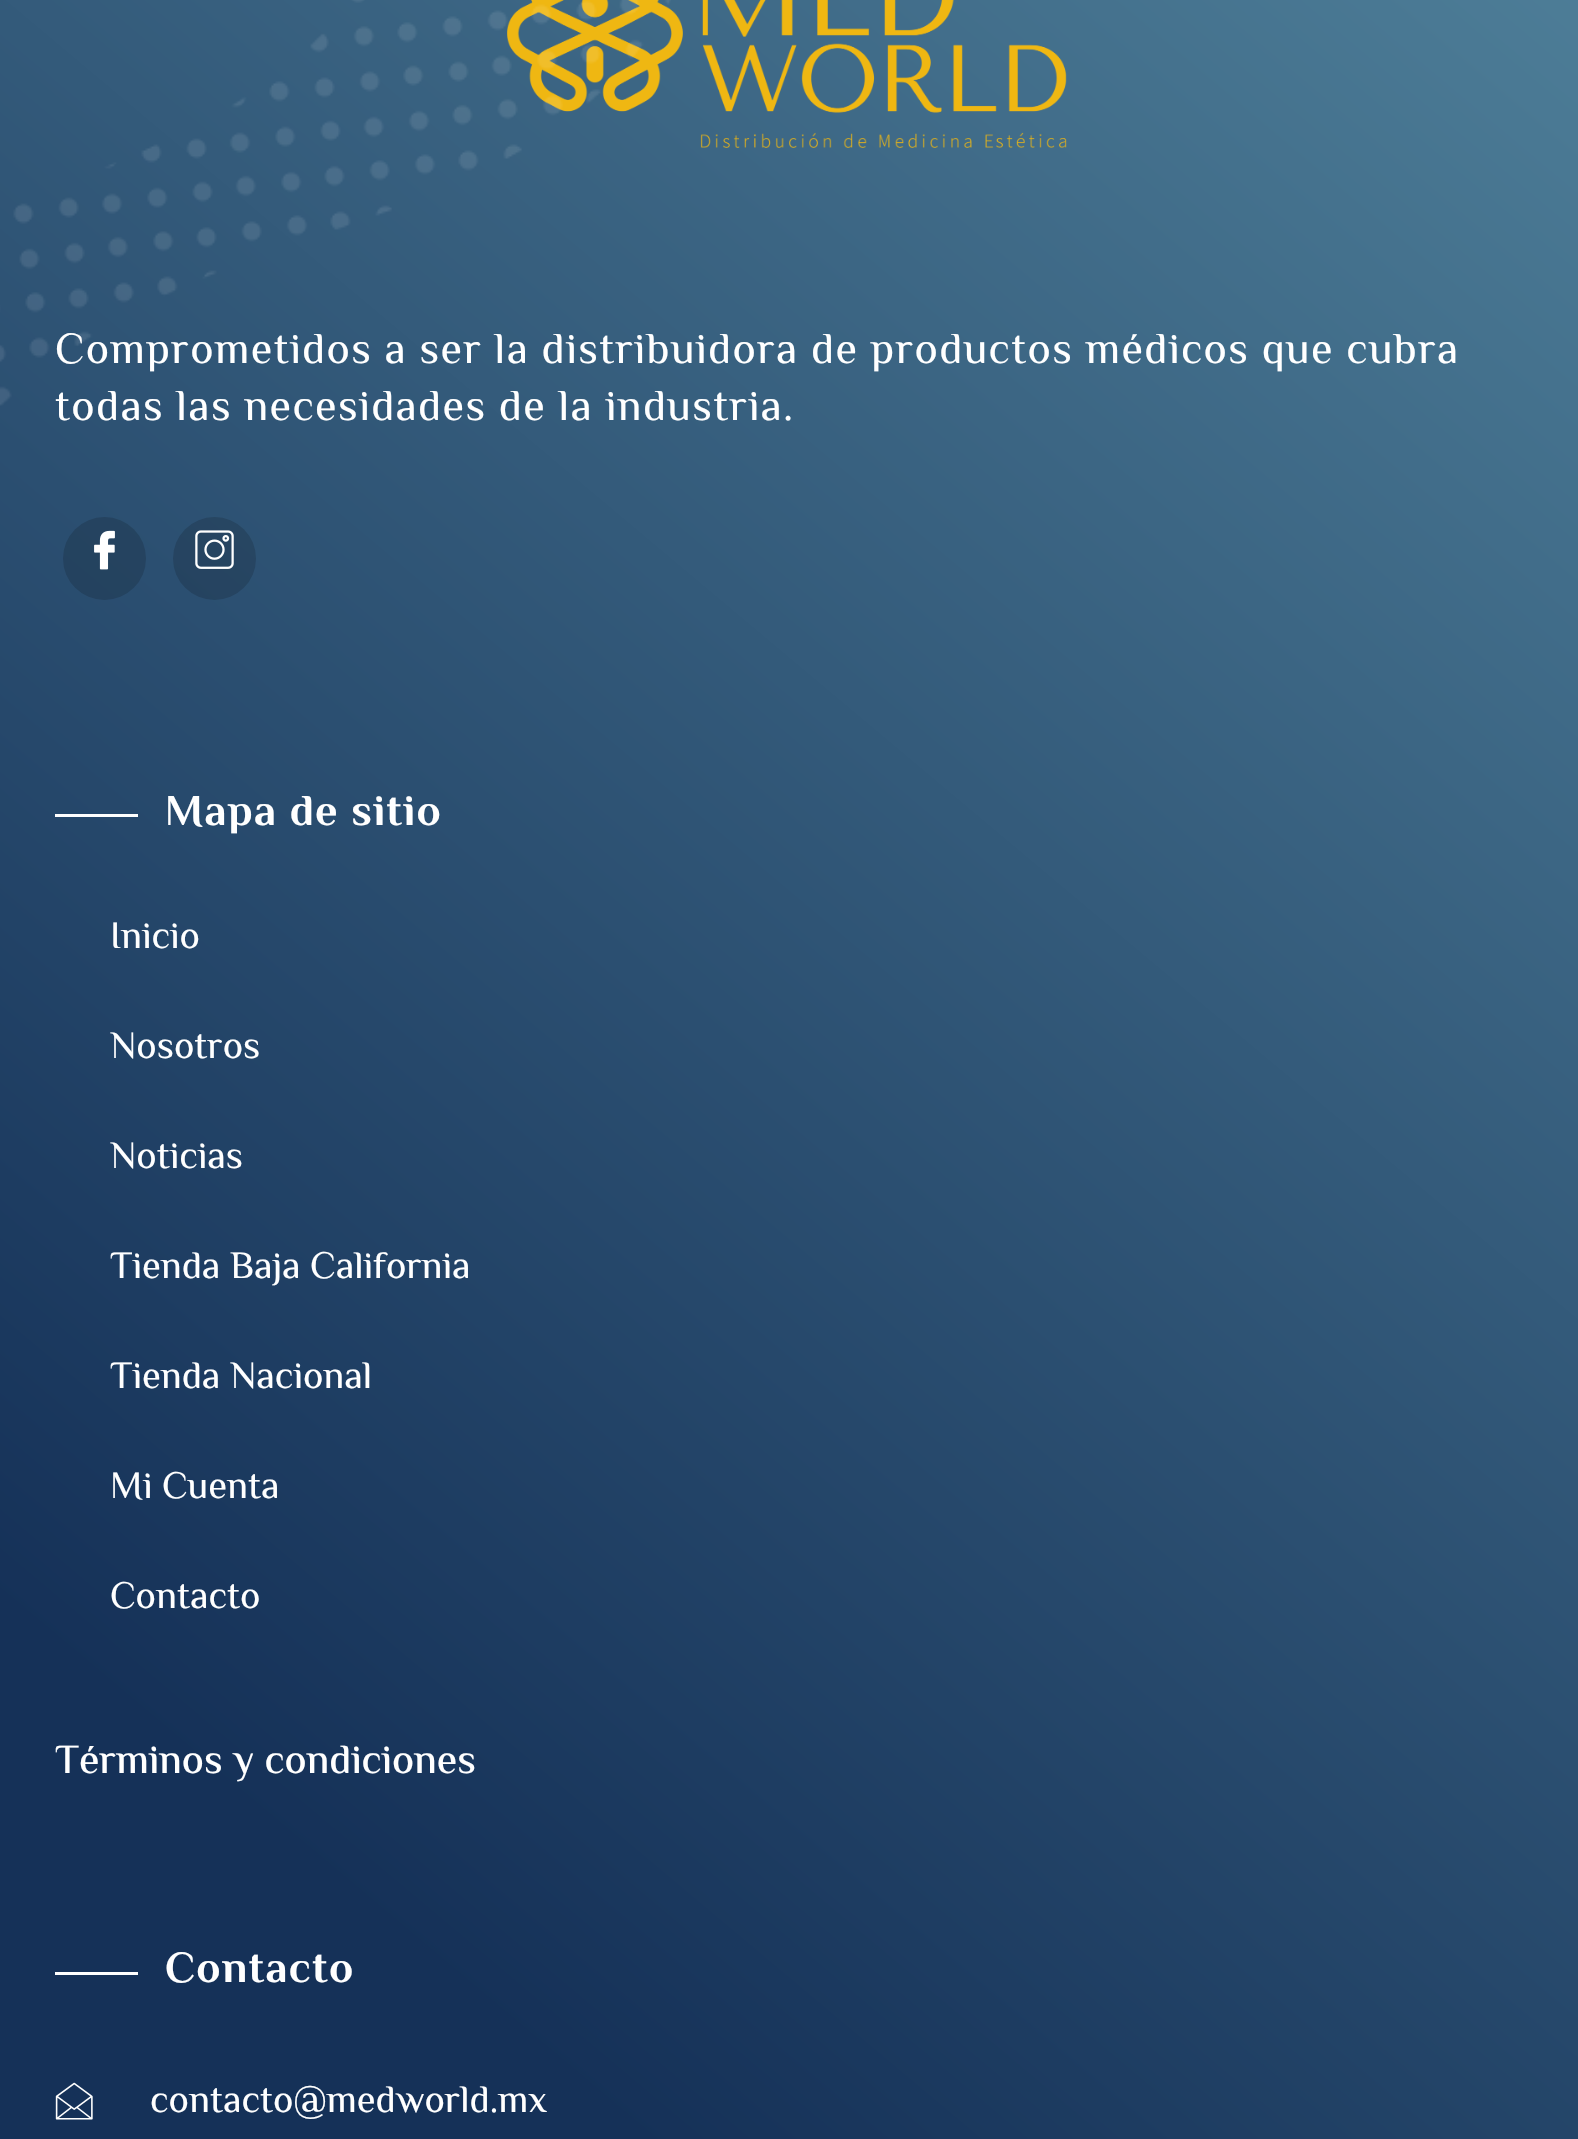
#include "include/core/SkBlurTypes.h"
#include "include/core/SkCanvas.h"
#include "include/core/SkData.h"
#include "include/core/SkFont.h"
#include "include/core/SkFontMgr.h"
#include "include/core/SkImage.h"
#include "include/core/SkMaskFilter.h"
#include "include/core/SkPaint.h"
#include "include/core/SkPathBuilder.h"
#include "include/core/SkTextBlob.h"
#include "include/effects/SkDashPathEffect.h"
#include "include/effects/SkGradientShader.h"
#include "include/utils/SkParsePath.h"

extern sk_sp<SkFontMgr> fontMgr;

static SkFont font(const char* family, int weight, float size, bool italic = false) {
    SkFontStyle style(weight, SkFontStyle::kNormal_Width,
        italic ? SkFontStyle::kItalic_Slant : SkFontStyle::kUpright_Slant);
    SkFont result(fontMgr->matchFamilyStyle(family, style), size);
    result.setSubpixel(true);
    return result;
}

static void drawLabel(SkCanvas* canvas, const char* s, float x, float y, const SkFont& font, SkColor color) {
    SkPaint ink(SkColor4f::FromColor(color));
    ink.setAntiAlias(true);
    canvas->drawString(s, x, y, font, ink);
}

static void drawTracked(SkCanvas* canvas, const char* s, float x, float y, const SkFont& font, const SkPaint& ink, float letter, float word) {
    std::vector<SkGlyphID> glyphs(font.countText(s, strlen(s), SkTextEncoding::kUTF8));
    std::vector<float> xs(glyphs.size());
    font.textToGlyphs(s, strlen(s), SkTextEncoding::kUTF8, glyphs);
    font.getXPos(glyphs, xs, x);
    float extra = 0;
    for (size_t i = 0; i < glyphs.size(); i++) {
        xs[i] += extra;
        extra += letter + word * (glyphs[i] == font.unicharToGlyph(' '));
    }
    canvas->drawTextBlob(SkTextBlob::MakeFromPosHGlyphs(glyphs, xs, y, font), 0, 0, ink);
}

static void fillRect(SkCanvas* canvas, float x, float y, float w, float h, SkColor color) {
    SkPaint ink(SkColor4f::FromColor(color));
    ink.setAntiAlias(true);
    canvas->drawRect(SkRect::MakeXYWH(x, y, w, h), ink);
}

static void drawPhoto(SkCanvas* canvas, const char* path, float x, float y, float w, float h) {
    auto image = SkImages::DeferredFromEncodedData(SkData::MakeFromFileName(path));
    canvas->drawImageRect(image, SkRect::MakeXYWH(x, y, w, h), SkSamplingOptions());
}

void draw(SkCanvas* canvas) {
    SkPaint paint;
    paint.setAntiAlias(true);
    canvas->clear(0xFFFFFFFF);
    {
        const SkColor colors[] = {0xFF153158, 0xFF52849D};
        const float stops[] = {0.3f, 1};
        const SkPoint ends[] = {{-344, 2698}, {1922, -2.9f}};
        paint.setShader(SkGradientShader::MakeLinear(ends, colors, stops, 2, SkTileMode::kClamp));
        paint.setAlpha(255);
    }
    canvas->drawRect(SkRect::MakeXYWH(0, 0, 1578, 2139), paint);
    drawPhoto(canvas, "assets/img2.png", 507, 0, 560, 148);
    SkFont font1 = font("El Messiri", 400, 44);
    paint.setShader(nullptr);
    paint.setColor(0xFFFFFFFF);
    drawTracked(canvas, "Comprometidos a ser la distribuidora de productos médicos que cubra", 55, 363, font1, paint, 1.38f, 0);
    drawTracked(canvas, "todas las necesidades de la industria.", 55, 420, font1, paint, 1.38f, 0);
    drawPhoto(canvas, "assets/img1.png", 0, 0, 671, 406);
    paint.setColor(0x26000000);
    canvas->drawCircle(104.5f, 558.5f, 41.5f, paint);
    drawPhoto(canvas, "assets/img3.png", 94, 530, 21, 40);
    canvas->drawCircle(214.5f, 558.5f, 41.5f, paint);
    drawPhoto(canvas, "assets/img4.png", 195, 530, 39, 39);
    fillRect(canvas, 55, 814, 83, 3, 0xFFFFFFFF);
    SkFont font2 = font("El Messiri", 700, 44);
    paint.setColor(0xFFFFFFFF);
    drawTracked(canvas, "Mapa de sitio", 165, 825, font2, paint, 1.38f, 0);
    SkFont font3 = font("El Messiri", 400, 38.5f);
    drawLabel(canvas, "Inicio", 110, 948, font3, 0xFFFFFFFF);
    drawLabel(canvas, "Nosotros", 110, 1058, font3, 0xFFFFFFFF);
    drawLabel(canvas, "Noticias", 110, 1168, font3, 0xFFFFFFFF);
    drawLabel(canvas, "Tienda Baja California", 110, 1278, font3, 0xFFFFFFFF);
    drawLabel(canvas, "Tienda Nacional", 110, 1388, font3, 0xFFFFFFFF);
    drawLabel(canvas, "Mi Cuenta", 110, 1498, font3, 0xFFFFFFFF);
    drawLabel(canvas, "Contacto", 110, 1608, font3, 0xFFFFFFFF);
    SkFont font4 = font("El Messiri", 500, 41.25f);
    drawLabel(canvas, "Términos y condiciones", 55, 1773, font4, 0xFFFFFFFF);
    fillRect(canvas, 55, 1972, 83, 3, 0xFFFFFFFF);
    drawTracked(canvas, "Contacto", 165, 1982, font2, paint, 1.38f, 0);
    drawPhoto(canvas, "assets/img5.png", 55, 2082, 38, 38);
    drawLabel(canvas, "contacto@medworld.mx", 150, 2112, font3, 0xFFFFFFFF);
}
